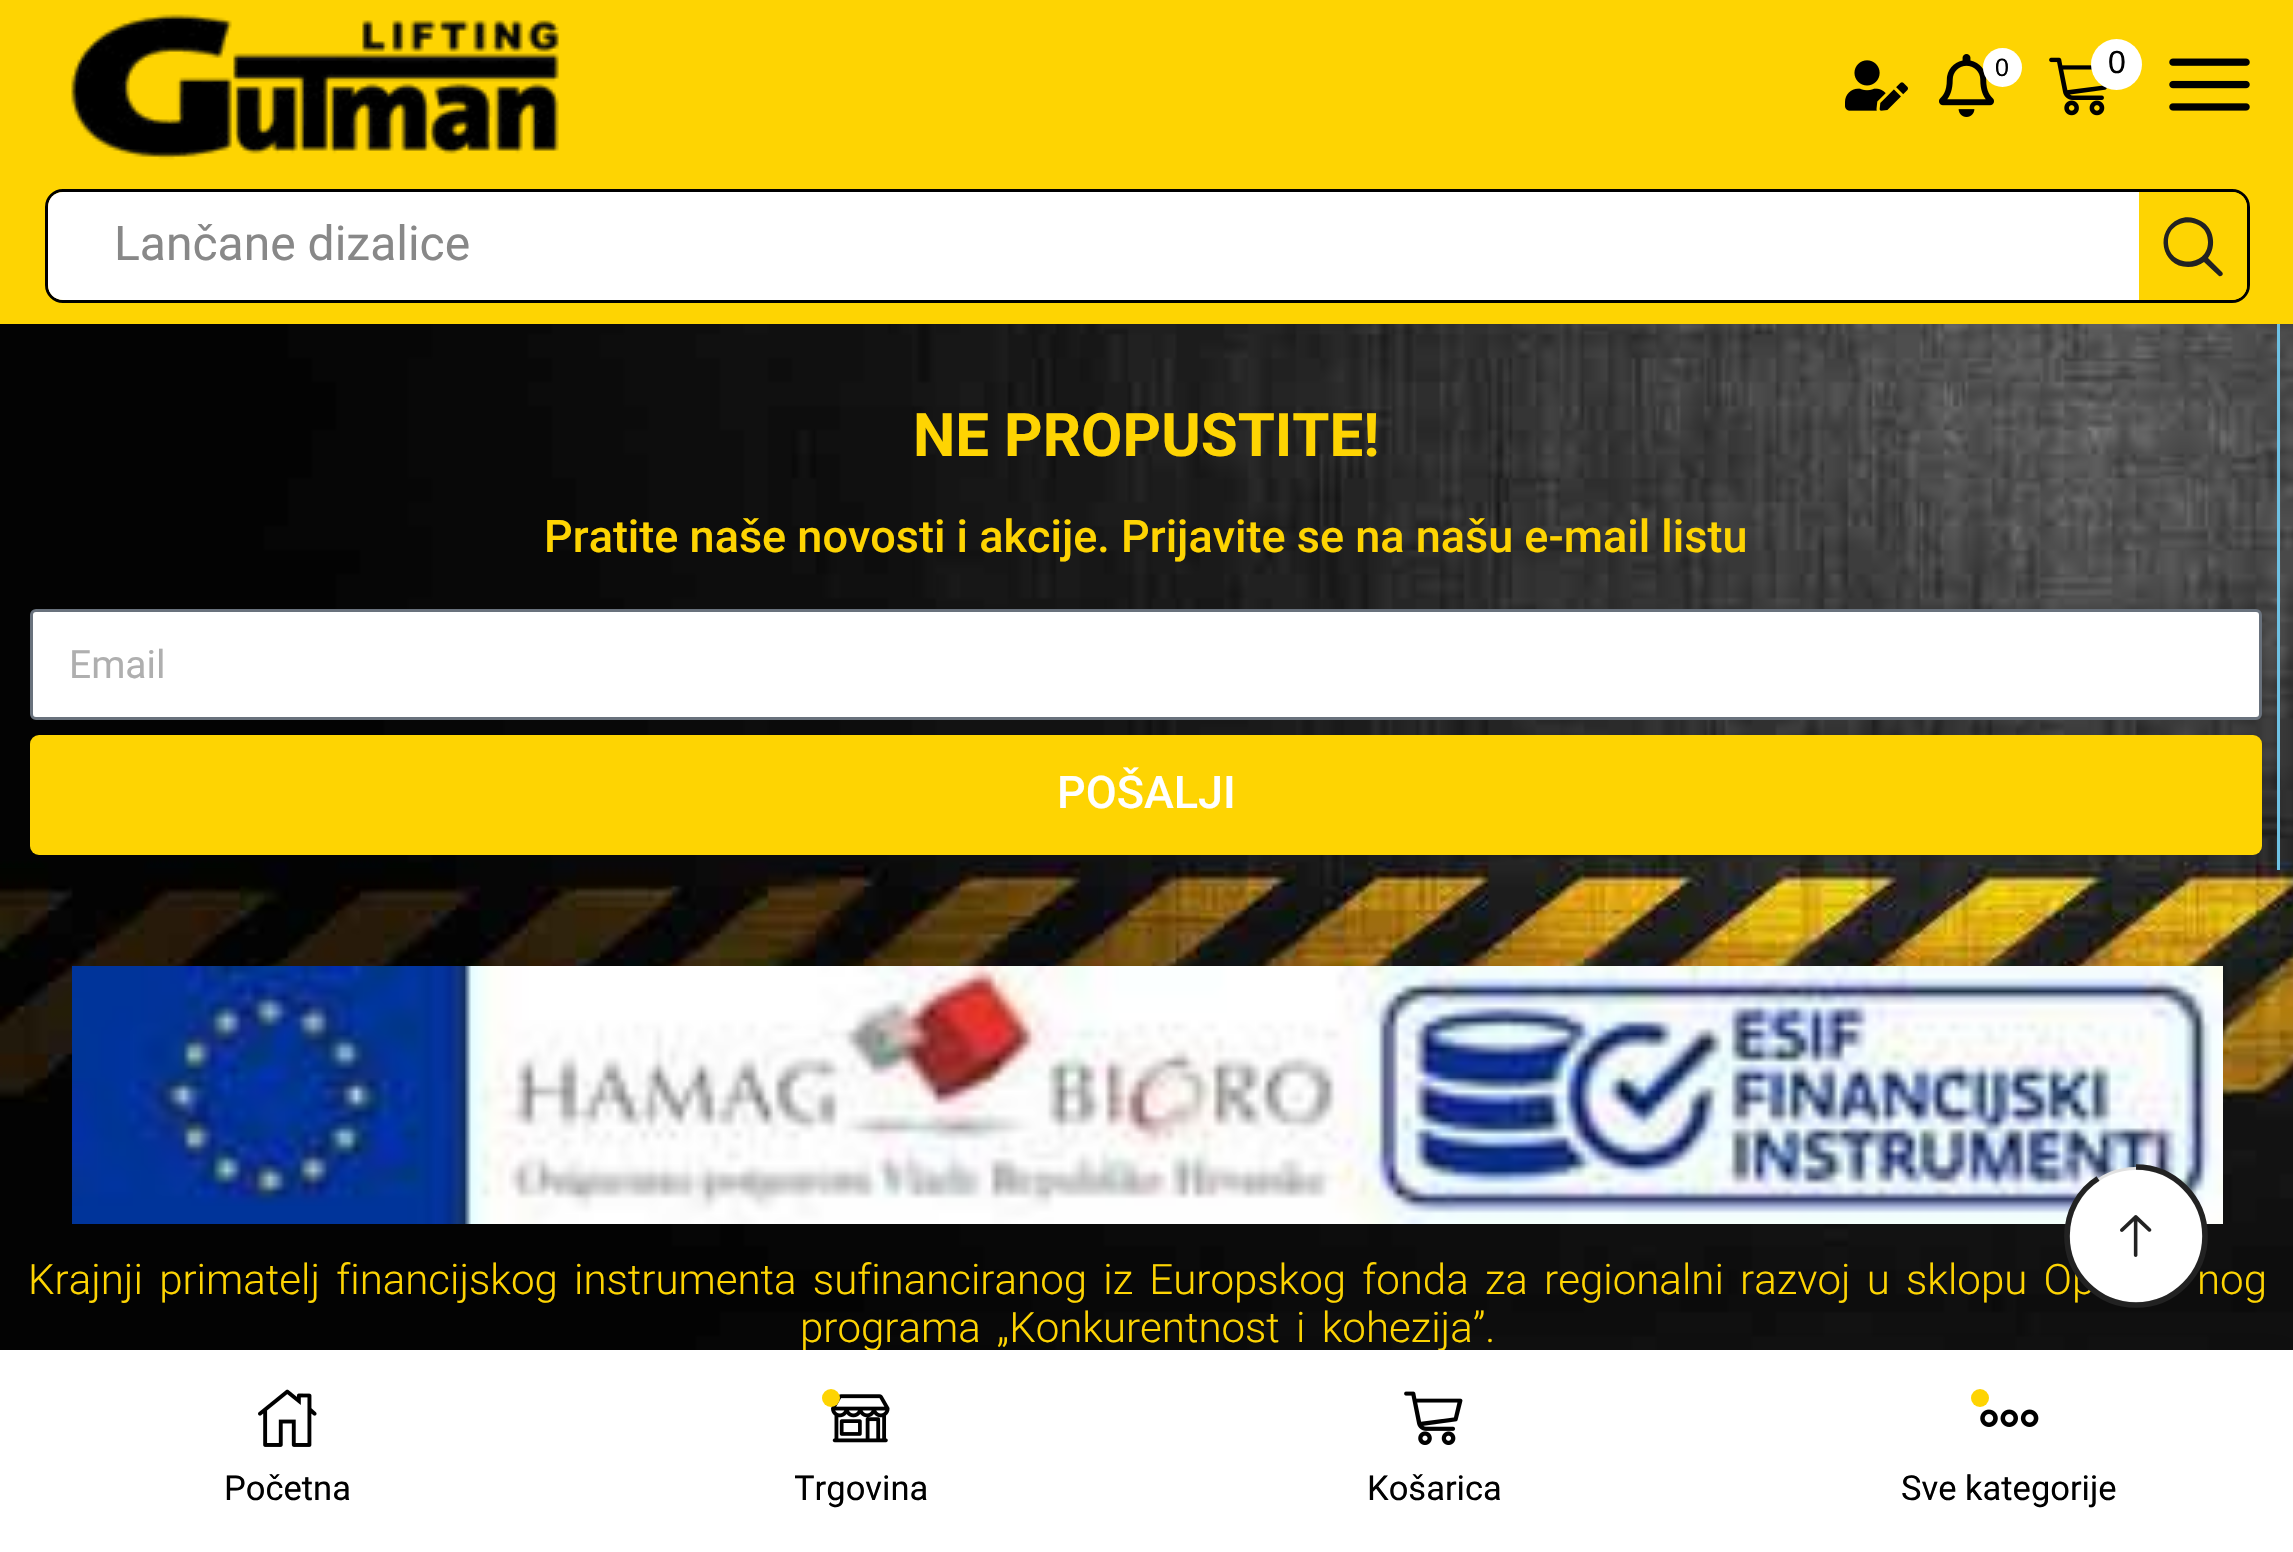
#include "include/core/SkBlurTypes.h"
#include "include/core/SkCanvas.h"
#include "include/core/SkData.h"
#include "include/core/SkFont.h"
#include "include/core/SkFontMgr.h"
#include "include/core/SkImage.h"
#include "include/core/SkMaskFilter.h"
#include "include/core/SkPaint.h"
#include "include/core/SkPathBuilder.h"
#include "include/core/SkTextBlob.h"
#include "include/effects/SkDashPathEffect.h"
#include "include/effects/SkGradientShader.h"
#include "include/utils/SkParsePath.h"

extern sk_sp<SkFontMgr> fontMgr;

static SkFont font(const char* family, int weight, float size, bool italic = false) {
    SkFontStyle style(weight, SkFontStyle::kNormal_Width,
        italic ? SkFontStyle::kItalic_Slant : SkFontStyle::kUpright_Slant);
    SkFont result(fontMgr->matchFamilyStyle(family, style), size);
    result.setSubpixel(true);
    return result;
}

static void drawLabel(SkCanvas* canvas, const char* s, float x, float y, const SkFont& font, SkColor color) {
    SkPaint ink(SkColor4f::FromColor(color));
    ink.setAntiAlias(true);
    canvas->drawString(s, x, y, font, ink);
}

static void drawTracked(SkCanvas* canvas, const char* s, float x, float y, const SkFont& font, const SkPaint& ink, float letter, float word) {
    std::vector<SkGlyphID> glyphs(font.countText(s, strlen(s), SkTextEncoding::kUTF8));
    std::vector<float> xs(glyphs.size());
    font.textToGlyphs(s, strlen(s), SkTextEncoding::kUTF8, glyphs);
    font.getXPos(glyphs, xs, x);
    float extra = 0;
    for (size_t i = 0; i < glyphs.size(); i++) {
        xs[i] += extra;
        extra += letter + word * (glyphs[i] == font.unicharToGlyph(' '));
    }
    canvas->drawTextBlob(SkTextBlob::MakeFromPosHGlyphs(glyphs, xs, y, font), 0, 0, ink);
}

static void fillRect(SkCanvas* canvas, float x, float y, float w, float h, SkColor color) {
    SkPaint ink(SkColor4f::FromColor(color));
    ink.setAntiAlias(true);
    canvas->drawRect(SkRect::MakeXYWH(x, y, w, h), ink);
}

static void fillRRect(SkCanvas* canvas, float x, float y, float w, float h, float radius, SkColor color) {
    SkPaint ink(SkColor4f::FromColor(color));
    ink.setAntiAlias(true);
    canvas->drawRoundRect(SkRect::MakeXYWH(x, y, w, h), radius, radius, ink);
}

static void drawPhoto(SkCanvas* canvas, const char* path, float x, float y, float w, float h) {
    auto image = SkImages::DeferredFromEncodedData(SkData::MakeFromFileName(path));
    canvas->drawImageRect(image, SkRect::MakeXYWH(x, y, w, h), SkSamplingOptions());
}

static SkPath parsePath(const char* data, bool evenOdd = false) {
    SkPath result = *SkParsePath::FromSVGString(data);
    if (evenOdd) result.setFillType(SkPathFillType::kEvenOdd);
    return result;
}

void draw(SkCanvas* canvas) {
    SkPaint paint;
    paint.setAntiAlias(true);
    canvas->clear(0xFFFFFFFF);
    fillRect(canvas, 0, 0, 2293, 324, 0xFFFED402);
    drawPhoto(canvas, "assets/img1.png", 71, 14, 488, 146);
    drawPhoto(canvas, "assets/img2.png", 1845, 60, 63, 51);
    drawPhoto(canvas, "assets/img3.png", 1939, 54, 55, 63);
    paint.setColor(0xFFFFFFFF);
    canvas->drawCircle(2002.5f, 67.5f, 19.5f, paint);
    SkFont font1 = font("Liberation Sans", 400, 25);
    drawLabel(canvas, "0", 1995, 76, font1, 0xFF000000);
    drawPhoto(canvas, "assets/img4.png", 2049, 57, 58, 59);
    canvas->drawCircle(2116.5f, 64.5f, 25.5f, paint);
    SkFont font2 = font("Liberation Sans", 400, 32);
    drawLabel(canvas, "0", 2108, 73, font2, 0xFF000000);
    drawPhoto(canvas, "assets/img5.png", 2169, 58, 81, 53);
    paint.setStroke(true);
    paint.setStrokeWidth(3);
    paint.setColor(0xFF000000);
    canvas->drawRoundRect(SkRect::MakeXYWH(46.5f, 190.5f, 2202, 111), 16.5f, 16.5f, paint);
    paint.setStroke(false);
    paint.setColor(0xFFFFFFFF);
    canvas->drawPath(parsePath("M63 192H2139V300H63C54.5 300 48 293.5 48 285V207C48 198.5 54.5 192 63 192Z"), paint);
    SkFont font3 = font("Roboto", 400, 48);
    drawLabel(canvas, "Lančane dizalice", 114, 260, font3, 0xFF888888);
    paint.setColor(0xFFFED402);
    canvas->drawPath(parsePath("M2139 192H2232C2240.5 192 2247 198.5 2247 207V285C2247 293.5 2240.5 300 2232 300H2139Z"), paint);
    paint.setColor(0xFF222222);
    canvas->drawPath(parsePath("M2222 272L2208 258C2217 246 2214 228 2201 221C2194 217 2186 216 2179 219C2154 230 2161 267 2188 267C2194 267 2200 265 2204 262L2219 276C2222 277 2224 274 2222 272ZM2208 242C2208 268 2168 268 2168 242C2168 216 2208 216 2208 242Z"), paint);
    drawPhoto(canvas, "assets/img11.png", 0, 324, 2293, 1026);
    paint.setColor(0x26000000);
    paint.setMaskFilter(SkMaskFilter::MakeBlur(kNormal_SkBlurStyle, 18));
    canvas->drawRect(SkRect::MakeXYWH(6, 1350, 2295, 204), paint);
    paint.setMaskFilter(nullptr);
    drawPhoto(canvas, "assets/img12.png", 72, 966, 2151, 258);
    SkFont font4 = font("Roboto", 300, 42);
    paint.setColor(0xFFFED402);
    drawTracked(canvas, "Krajnji primatelj financijskog instrumenta sufinanciranog iz Europskog fonda za regionalni razvoj u sklopu Op", 28, 1294, font4, paint, 0, 6);
    drawTracked(canvas, "nog", 2197, 1294, font4, paint, 0, 6);
    paint.setColor(0xFFFFFFFF);
    canvas->drawCircle(2136, 1236, 67.5f, paint);
    paint.setStroke(true);
    paint.setColor(0xFFE1E1E1);
    canvas->drawCircle(2136, 1236, 67.5f, paint);
    paint.setStrokeWidth(5.6f);
    paint.setColor(0xFF222222);
    canvas->drawPath(parsePath("M2136 1167C2174 1167 2205 1198 2205 1236C2205 1274 2174 1305 2136 1305C2098 1305 2067 1274 2067 1236C2067 1212 2079 1190.5 2098 1178.5"), paint);
    drawPhoto(canvas, "assets/img6.png", 2120, 1215, 32, 42);
    paint.setStroke(false);
    paint.setColor(0xFFFED402);
    drawTracked(canvas, "programa „Konkurentnost i kohezija”.", 800, 1342, font4, paint, 0, 6);
    fillRect(canvas, 0, 1350, 2293, 202, 0xFFFFFFFF);
    drawPhoto(canvas, "assets/img7.png", 258, 1389, 59, 58);
    SkFont font5 = font("Roboto", 400, 34.5f);
    drawLabel(canvas, "Početna", 224, 1500, font5, 0xFF000000);
    drawPhoto(canvas, "assets/img8.png", 831, 1394, 59, 49);
    canvas->drawCircle(831, 1398, 9, paint);
    canvas->save();
    canvas->clipRect(SkRect::MakeXYWH(795, 1446, 132, 69));
    drawLabel(canvas, "Trgovina", 794, 1500, font5, 0xFF000000);
    canvas->restore();
    drawPhoto(canvas, "assets/img9.png", 1404, 1391, 59, 54);
    drawLabel(canvas, "Košarica", 1367, 1500, font5, 0xFF000000);
    canvas->drawCircle(1980, 1398, 9, paint);
    drawPhoto(canvas, "assets/img10.png", 1980, 1409, 59, 18);
    drawLabel(canvas, "Sve kategorije", 1901, 1500, font5, 0xFF000000);
    SkFont font6 = font("Roboto", 700, 60);
    drawLabel(canvas, "NE PROPUSTITE!", 913, 456, font6, 0xFFFED402);
    SkFont font7 = font("Roboto", 500, 45);
    drawLabel(canvas, "Pratite naše novosti i akcije. Prijavite se na našu e-mail listu", 544, 552, font7, 0xFFFED402);
    paint.setColor(0xFFFFFFFF);
    canvas->drawRoundRect(SkRect::MakeXYWH(31.5f, 610.5f, 2229, 108), 4.5f, 4.5f, paint);
    paint.setStroke(true);
    paint.setStrokeWidth(3);
    paint.setColor(0xFF69727D);
    canvas->drawRoundRect(SkRect::MakeXYWH(31.5f, 610.5f, 2229, 108), 4.5f, 4.5f, paint);
    SkFont font8 = font("Roboto", 400, 39);
    drawLabel(canvas, "Email", 69, 678, font8, 0xFFAFAFAF);
    fillRRect(canvas, 30, 735, 2232, 120, 9, 0xFFFED402);
    drawLabel(canvas, "POŠALJI", 1057, 808, font7, 0xFFFFFFFF);
    fillRect(canvas, 2277, 324, 3, 546, 0xFF6EC1E4);
}
